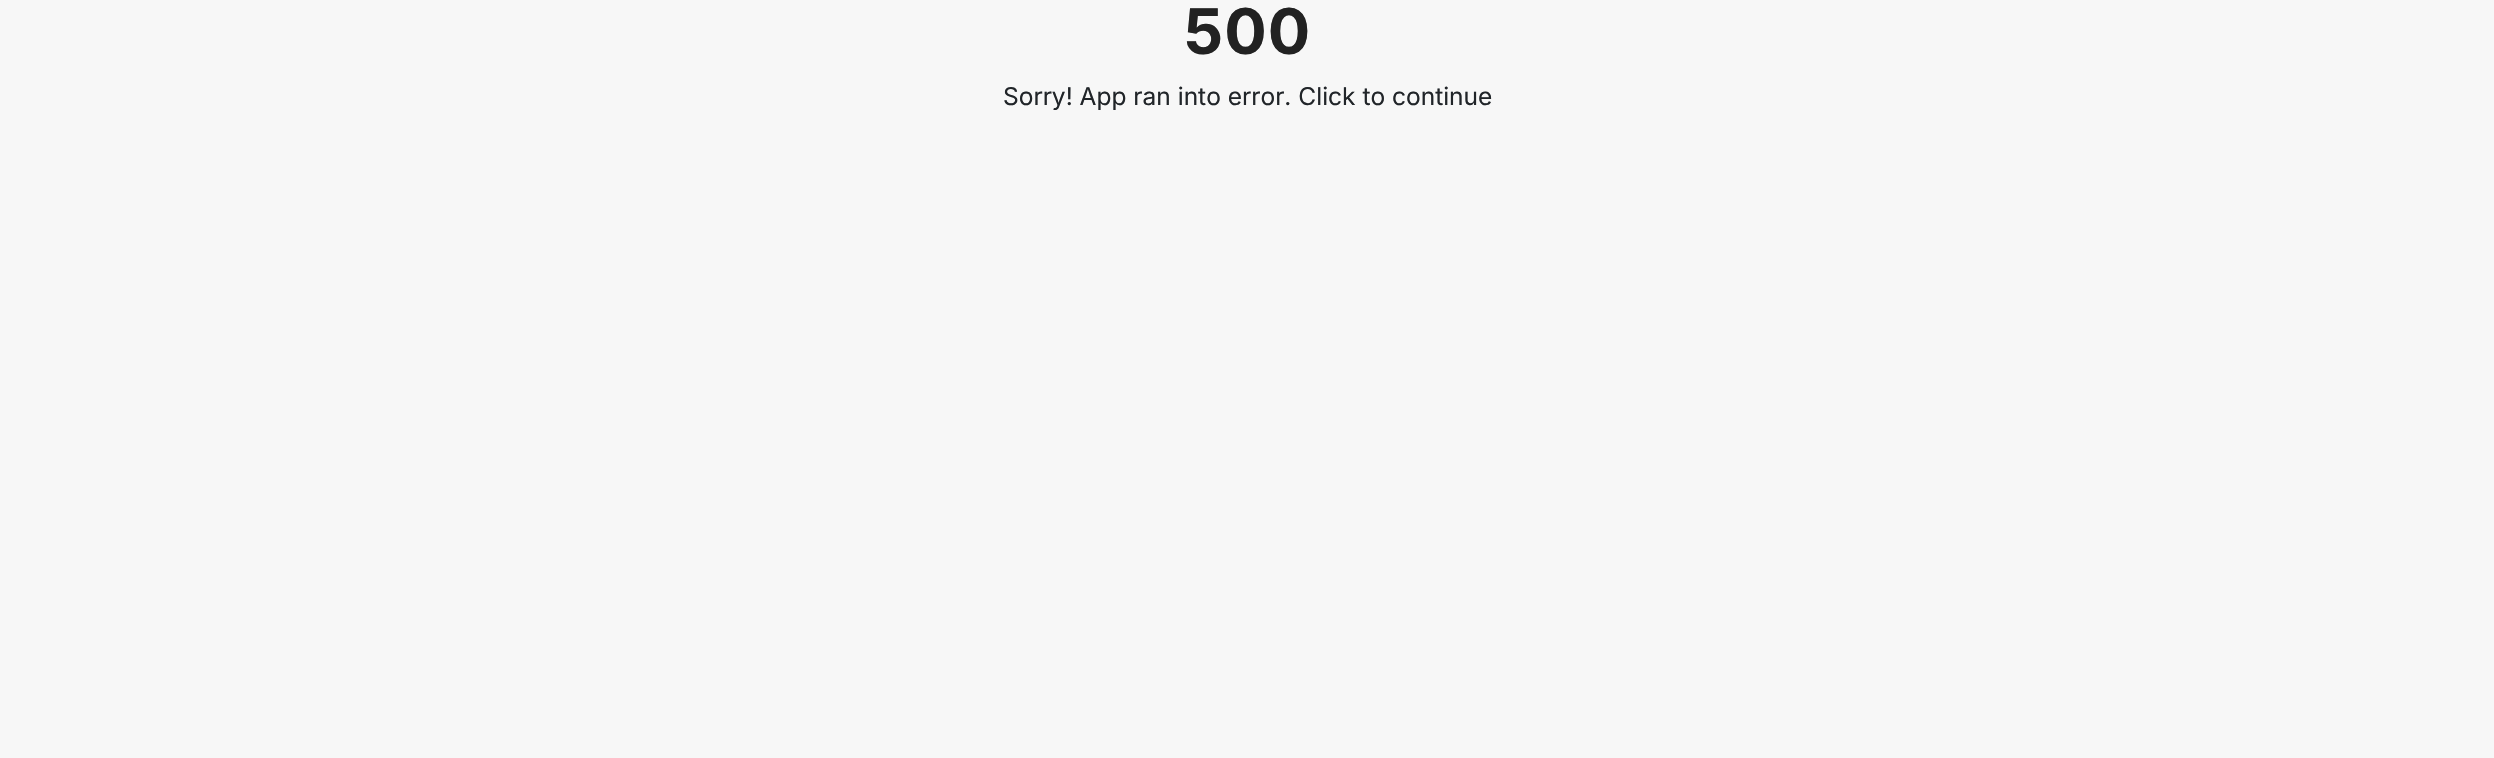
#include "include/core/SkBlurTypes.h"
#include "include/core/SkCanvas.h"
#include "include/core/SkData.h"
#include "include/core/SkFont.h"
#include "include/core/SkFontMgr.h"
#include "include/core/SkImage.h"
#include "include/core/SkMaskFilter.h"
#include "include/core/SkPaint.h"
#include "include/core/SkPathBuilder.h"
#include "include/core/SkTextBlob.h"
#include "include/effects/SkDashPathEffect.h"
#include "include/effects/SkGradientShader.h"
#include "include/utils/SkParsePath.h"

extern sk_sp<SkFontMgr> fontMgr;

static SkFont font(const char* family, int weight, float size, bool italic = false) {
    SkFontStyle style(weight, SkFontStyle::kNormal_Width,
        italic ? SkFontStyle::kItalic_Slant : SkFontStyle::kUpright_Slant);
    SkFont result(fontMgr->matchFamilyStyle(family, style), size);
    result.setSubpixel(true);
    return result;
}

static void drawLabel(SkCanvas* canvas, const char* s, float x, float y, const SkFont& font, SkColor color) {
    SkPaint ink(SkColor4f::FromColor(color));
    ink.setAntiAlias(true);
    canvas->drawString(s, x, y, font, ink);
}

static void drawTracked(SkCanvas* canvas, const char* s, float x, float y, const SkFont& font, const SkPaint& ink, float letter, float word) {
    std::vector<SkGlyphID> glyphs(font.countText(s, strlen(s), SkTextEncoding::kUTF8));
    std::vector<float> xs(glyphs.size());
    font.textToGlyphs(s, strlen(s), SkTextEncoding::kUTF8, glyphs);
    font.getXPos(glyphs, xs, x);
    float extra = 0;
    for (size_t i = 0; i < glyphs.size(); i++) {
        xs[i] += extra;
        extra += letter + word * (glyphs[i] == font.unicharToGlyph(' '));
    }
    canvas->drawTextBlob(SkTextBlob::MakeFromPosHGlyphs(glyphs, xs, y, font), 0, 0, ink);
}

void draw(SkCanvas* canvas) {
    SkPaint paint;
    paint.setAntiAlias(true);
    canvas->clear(0xFFF7F7F7);
    SkFont font1 = font("Inter", 700, 63);
    paint.setColor(0xFF222222);
    drawTracked(canvas, "500", 1184, 54, font1, paint, 1, 0);
    SkFont font2 = font("Inter", 400, 24.5f);
    drawLabel(canvas, "Sorry! App ran into error. Click to continue", 1003, 105, font2, 0xFF212529);
}
